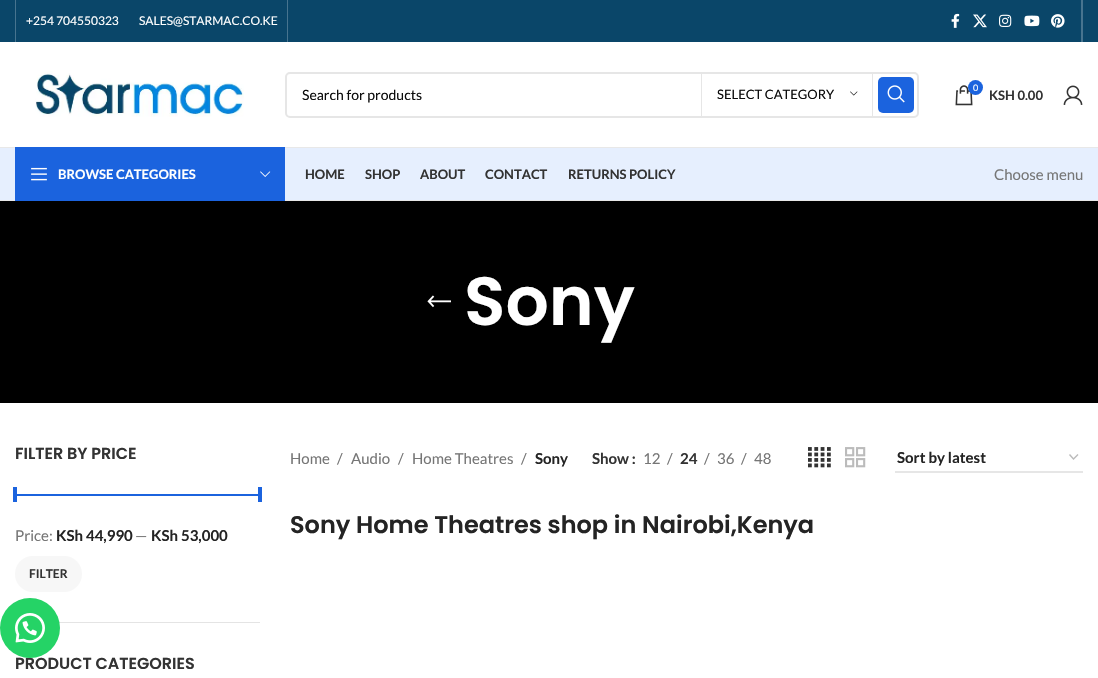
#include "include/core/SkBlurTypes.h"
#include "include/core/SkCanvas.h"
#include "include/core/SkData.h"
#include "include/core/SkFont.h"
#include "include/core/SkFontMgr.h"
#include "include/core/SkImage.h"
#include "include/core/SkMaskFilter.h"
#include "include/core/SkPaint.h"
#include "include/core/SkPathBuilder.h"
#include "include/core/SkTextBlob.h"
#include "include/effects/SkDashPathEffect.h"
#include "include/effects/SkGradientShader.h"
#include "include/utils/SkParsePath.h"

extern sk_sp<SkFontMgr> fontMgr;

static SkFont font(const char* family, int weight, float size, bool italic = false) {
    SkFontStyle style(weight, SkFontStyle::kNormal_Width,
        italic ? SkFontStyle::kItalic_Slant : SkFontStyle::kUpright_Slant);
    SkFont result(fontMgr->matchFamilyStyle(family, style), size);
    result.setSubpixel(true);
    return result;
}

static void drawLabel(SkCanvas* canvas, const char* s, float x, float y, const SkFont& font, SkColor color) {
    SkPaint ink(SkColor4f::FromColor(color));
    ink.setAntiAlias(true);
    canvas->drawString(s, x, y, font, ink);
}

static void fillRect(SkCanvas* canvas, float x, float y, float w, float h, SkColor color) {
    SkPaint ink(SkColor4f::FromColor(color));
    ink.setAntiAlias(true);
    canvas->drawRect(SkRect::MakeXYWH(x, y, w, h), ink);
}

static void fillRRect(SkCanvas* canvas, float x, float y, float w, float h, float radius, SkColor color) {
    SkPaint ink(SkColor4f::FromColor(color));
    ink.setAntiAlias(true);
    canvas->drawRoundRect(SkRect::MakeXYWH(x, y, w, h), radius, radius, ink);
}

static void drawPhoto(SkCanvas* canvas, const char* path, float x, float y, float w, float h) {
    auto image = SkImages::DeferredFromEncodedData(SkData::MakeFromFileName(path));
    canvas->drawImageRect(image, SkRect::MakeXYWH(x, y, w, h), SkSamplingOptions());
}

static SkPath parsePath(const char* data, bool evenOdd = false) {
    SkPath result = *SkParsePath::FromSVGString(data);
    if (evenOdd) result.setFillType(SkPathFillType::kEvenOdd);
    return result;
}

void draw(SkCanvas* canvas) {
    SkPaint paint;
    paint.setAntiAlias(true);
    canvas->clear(0xFFFFFFFF);
    fillRect(canvas, 0, 0, 1098, 42, 0xFF0A4669);
    fillRect(canvas, 15, 0, 1, 42, 0xFF47748F);
    SkFont font1 = font("Lato", 400, 12);
    drawLabel(canvas, "+254 704550323", 26, 25, font1, 0xFFFFFFFF);
    drawLabel(canvas, "SALES@STARMAC.CO.KE", 139, 25, font1, 0xFFFFFFFF);
    fillRect(canvas, 287, 0, 1, 42, 0xFF47748F);
    drawPhoto(canvas, "assets/img1.png", 951, 13, 9, 15);
    drawPhoto(canvas, "assets/img2.png", 973, 14, 14, 14);
    drawPhoto(canvas, "assets/img3.png", 999, 14, 13, 13);
    drawPhoto(canvas, "assets/img4.png", 1024, 15, 16, 12);
    drawPhoto(canvas, "assets/img5.png", 1051, 14, 14, 14);
    fillRect(canvas, 1081, 0, 2, 42, 0xFF47748F);
    fillRect(canvas, 0, 147, 1098, 1, 0xFFE8E8E8);
    drawPhoto(canvas, "assets/img6.png", 35, 71, 209, 46);
    paint.setStroke(true);
    paint.setStrokeWidth(2);
    paint.setColor(0xFFE6E6E6);
    canvas->drawRoundRect(SkRect::MakeXYWH(286, 73, 632, 44), 4, 4, paint);
    SkFont font2 = font("Lato", 400, 14);
    drawLabel(canvas, "Search for products", 302, 100, font2, 0xFF0C0C0C);
    fillRect(canvas, 872, 74, 1, 42, 0xFFE6E6E6);
    fillRect(canvas, 701, 74, 1, 42, 0xFFE6E6E6);
    SkFont font3 = font("Lato", 400, 13);
    drawLabel(canvas, "SELECT CATEGORY", 717, 99, font3, 0xFF0C0C0C);
    drawPhoto(canvas, "assets/img7.png", 850, 91, 8, 5);
    fillRRect(canvas, 878, 77, 36, 36, 5, 0xFF1B63DE);
    drawPhoto(canvas, "assets/img8.png", 887, 85, 18, 18);
    drawPhoto(canvas, "assets/img9.png", 955, 85, 18, 21);
    paint.setStroke(false);
    paint.setColor(0xFF1B63DE);
    canvas->drawCircle(975.5f, 87.5f, 7.5f, paint);
    SkFont font4 = font("Lato", 400, 9);
    drawLabel(canvas, "0", 973, 91, font4, 0xFFFFFFFF);
    SkFont font5 = font("Lato", 700, 13);
    drawLabel(canvas, "KSH 0.00", 989, 100, font5, 0xFF333333);
    drawPhoto(canvas, "assets/img10.png", 1063, 85, 20, 20);
    fillRect(canvas, 0, 148, 1098, 52, 0xFFE6EFFE);
    fillRect(canvas, 0, 200, 1098, 1, 0xFFE8E8E8);
    fillRect(canvas, 15, 147, 270, 54, 0xFF1B63DE);
    drawPhoto(canvas, "assets/img11.png", 31, 167, 16, 14);
    drawLabel(canvas, "BROWSE CATEGORIES", 58, 179, font5, 0xFFFFFFFF);
    drawPhoto(canvas, "assets/img12.png", 260, 171, 11, 6);
    drawLabel(canvas, "HOME", 305, 179, font5, 0xFF333333);
    drawLabel(canvas, "SHOP", 365, 179, font5, 0xFF333333);
    drawLabel(canvas, "ABOUT", 420, 179, font5, 0xFF333333);
    drawLabel(canvas, "CONTACT", 485, 179, font5, 0xFF333333);
    drawLabel(canvas, "RETURNS POLICY", 568, 179, font5, 0xFF333333);
    SkFont font6 = font("Lato", 400, 15);
    drawLabel(canvas, "Choose menu", 994, 180, font6, 0xFF767676);
    fillRect(canvas, 0, 201, 1098, 202, 0xFF000000);
    drawPhoto(canvas, "assets/img13.png", 427, 295, 24, 13);
    SkFont font7 = font("Poppins", 600, 68);
    drawLabel(canvas, "Sony", 464, 325, font7, 0xFFFFFFFF);
    fillRect(canvas, 59, 622, 201, 1, 0xFFE4E4E4);
    SkFont font8 = font("Poppins", 600, 16);
    drawLabel(canvas, "FILTER BY PRICE", 15, 459, font8, 0xFF333333);
    fillRect(canvas, 15, 494, 245, 2, 0xFF1B63DE);
    fillRect(canvas, 13, 487, 4, 15, 0xFF1B63DE);
    fillRect(canvas, 258, 487, 4, 15, 0xFF1B63DE);
    drawLabel(canvas, "Price:", 15, 541, font6, 0xFF767676);
    SkFont font9 = font("Lato", 700, 15);
    drawLabel(canvas, "KSh 44,990", 56, 541, font9, 0xFF242424);
    drawLabel(canvas, "—", 135, 541, font6, 0xFF767676);
    drawLabel(canvas, "KSh 53,000", 151, 541, font9, 0xFF242424);
    fillRRect(canvas, 15, 556, 67, 36, 18, 0xFFF7F7F7);
    SkFont font10 = font("Lato", 700, 12);
    drawLabel(canvas, "FILTER", 29, 578, font10, 0xFF333333);
    drawLabel(canvas, "PRODUCT CATEGORIES", 15, 669, font8, 0xFF333333);
    drawLabel(canvas, "Home", 290, 464, font6, 0xFF767676);
    drawLabel(canvas, "/", 337, 464, font6, 0xFF767676);
    drawLabel(canvas, "Audio", 351, 464, font6, 0xFF767676);
    drawLabel(canvas, "/", 398, 464, font6, 0xFF767676);
    drawLabel(canvas, "Home Theatres", 412, 464, font6, 0xFF767676);
    drawLabel(canvas, "/", 521, 464, font6, 0xFF767676);
    drawLabel(canvas, "Sony", 535, 464, font9, 0xFF242424);
    drawLabel(canvas, "Show :", 592, 464, font9, 0xFF333333);
    drawLabel(canvas, "12", 643, 464, font6, 0xFF767676);
    drawLabel(canvas, "/", 667, 464, font6, 0xFF767676);
    drawLabel(canvas, "24", 680, 464, font9, 0xFF333333);
    drawLabel(canvas, "/", 704, 464, font6, 0xFF767676);
    drawLabel(canvas, "36", 717, 464, font6, 0xFF767676);
    drawLabel(canvas, "/", 741, 464, font6, 0xFF767676);
    drawLabel(canvas, "48", 754, 464, font6, 0xFF767676);
    drawPhoto(canvas, "assets/img14.png", 808, 447, 23, 21);
    drawPhoto(canvas, "assets/img15.png", 845, 447, 21, 21);
    paint.setStroke(true);
    paint.setStrokeWidth(1.4f);
    paint.setColor(0xFFBBBBBB);
    canvas->drawPath(parsePath("M1069.5 454.5L1073.5 459L1078 454.5"), paint);
    fillRect(canvas, 895, 471, 188, 2, 0xFFE6E6E6);
    drawLabel(canvas, "Sort by latest", 897, 463, font9, 0xFF242424);
    SkFont font11 = font("Poppins", 600, 24);
    drawLabel(canvas, "Sony Home Theatres shop in Nairobi,Kenya", 290, 533, font11, 0xFF242424);
    paint.setStroke(false);
    paint.setColor(0xFF25D366);
    canvas->drawCircle(30, 628, 30, paint);
    drawPhoto(canvas, "assets/img16.png", 15, 613, 30, 30);
}
